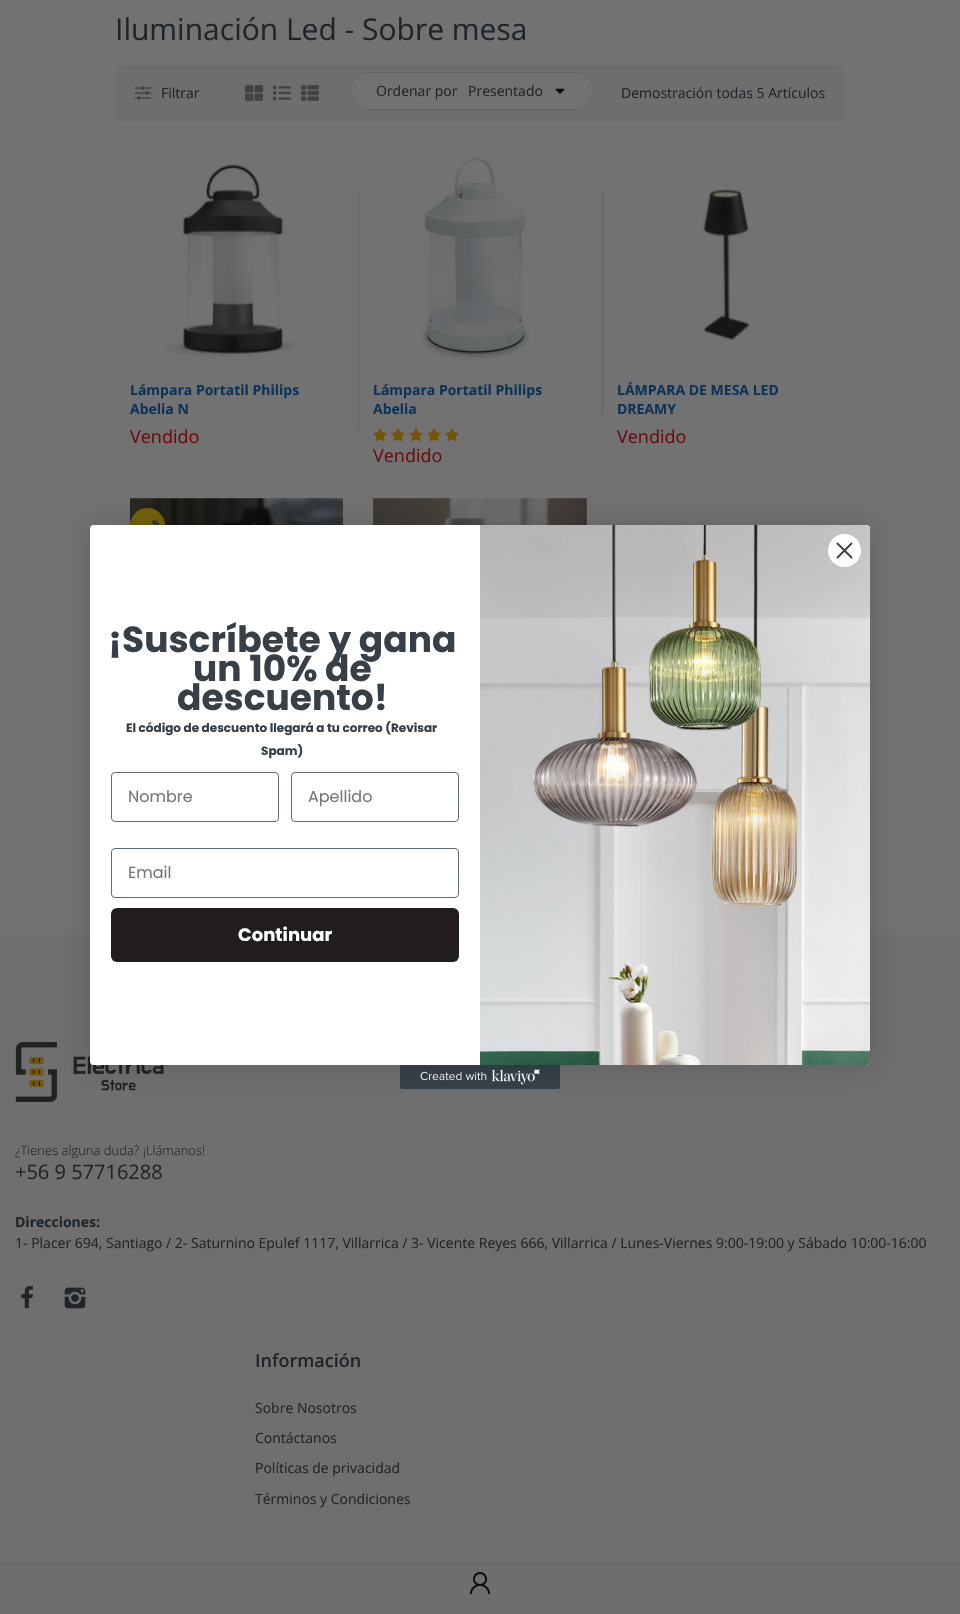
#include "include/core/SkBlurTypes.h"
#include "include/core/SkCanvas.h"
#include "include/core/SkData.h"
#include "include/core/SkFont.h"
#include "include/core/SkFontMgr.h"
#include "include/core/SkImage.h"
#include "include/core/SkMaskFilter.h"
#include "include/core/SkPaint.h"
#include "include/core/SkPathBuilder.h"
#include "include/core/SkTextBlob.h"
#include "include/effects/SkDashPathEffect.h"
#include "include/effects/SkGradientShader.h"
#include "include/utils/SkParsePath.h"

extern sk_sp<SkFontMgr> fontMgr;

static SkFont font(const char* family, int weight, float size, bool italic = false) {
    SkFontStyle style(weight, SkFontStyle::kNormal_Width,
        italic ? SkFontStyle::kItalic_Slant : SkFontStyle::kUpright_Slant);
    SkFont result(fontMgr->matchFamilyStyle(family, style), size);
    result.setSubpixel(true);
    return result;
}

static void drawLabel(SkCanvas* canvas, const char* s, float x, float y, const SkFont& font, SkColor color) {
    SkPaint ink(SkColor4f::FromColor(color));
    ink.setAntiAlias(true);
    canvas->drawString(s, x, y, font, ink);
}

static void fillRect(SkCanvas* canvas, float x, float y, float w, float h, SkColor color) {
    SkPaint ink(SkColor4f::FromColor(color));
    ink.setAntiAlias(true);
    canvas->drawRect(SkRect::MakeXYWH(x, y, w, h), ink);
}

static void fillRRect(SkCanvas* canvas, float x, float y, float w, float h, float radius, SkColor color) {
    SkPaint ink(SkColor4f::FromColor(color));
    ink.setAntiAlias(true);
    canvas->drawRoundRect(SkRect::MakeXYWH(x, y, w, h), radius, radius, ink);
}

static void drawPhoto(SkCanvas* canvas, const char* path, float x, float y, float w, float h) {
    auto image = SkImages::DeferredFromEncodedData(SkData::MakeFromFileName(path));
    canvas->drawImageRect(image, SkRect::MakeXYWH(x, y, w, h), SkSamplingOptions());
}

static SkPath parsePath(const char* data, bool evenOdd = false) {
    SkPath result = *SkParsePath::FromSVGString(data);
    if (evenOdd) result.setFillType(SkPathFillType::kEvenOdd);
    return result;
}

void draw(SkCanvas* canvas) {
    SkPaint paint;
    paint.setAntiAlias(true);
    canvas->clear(0xFF727272);
    SkFont font1 = font("Open Sans", 400, 30);
    drawLabel(canvas, "Iluminación Led - Sobre mesa", 115, 40, font1, 0xFF202529);
    fillRRect(canvas, 115, 65, 730, 56, 9, 0xFF6E6E6E);
    drawPhoto(canvas, "assets/img1.png", 135, 86, 16, 14);
    SkFont font2 = font("Open Sans", 400, 14);
    drawLabel(canvas, "Filtrar", 161, 98, font2, 0xFF202529);
    drawPhoto(canvas, "assets/img2.png", 245, 85, 18, 16);
    drawPhoto(canvas, "assets/img3.png", 273, 85, 18, 16);
    drawPhoto(canvas, "assets/img4.png", 301, 85, 18, 16);
    paint.setColor(0xFF727272);
    canvas->drawRoundRect(SkRect::MakeXYWH(350.5f, 72.5f, 243, 37), 18.5f, 18.5f, paint);
    paint.setStroke(true);
    paint.setStrokeWidth(1);
    paint.setColor(0xFF646464);
    canvas->drawRoundRect(SkRect::MakeXYWH(350.5f, 72.5f, 243, 37), 18.5f, 18.5f, paint);
    drawLabel(canvas, "Ordenar por", 376, 96, font2, 0xFF202529);
    drawLabel(canvas, "Presentado", 468, 96, font2, 0xFF202529);
    drawPhoto(canvas, "assets/img5.png", 555, 88, 10, 6);
    drawLabel(canvas, "Demostración todas 5 Artículos", 621, 98, font2, 0xFF202529);
    drawPhoto(canvas, "assets/img6.png", 164, 161, 132, 196);
    SkFont font3 = font("Open Sans", 700, 14);
    drawLabel(canvas, "Lámpara Portatil Philips", 130, 395, font3, 0xFF0C3358);
    drawLabel(canvas, "Abelia N", 130, 414, font3, 0xFF0C3358);
    SkFont font4 = font("Open Sans", 400, 18);
    drawLabel(canvas, "Vendido", 130, 443, font4, 0xFF6B0C0C);
    fillRect(canvas, 358, 192, 1, 239, 0xFF646464);
    drawPhoto(canvas, "assets/img7.png", 421, 156, 109, 205);
    drawLabel(canvas, "Lámpara Portatil Philips", 373, 395, font3, 0xFF0C3358);
    drawLabel(canvas, "Abelia", 373, 414, font3, 0xFF0C3358);
    drawPhoto(canvas, "assets/img8.png", 373, 428, 14, 14);
    drawPhoto(canvas, "assets/img8.png", 391, 428, 14, 14);
    drawPhoto(canvas, "assets/img8.png", 409, 428, 14, 14);
    drawPhoto(canvas, "assets/img8.png", 427, 428, 14, 14);
    drawPhoto(canvas, "assets/img8.png", 445, 428, 14, 14);
    drawLabel(canvas, "Vendido", 373, 462, font4, 0xFF6B0C0C);
    fillRect(canvas, 602, 189, 1, 226, 0xFF646464);
    drawPhoto(canvas, "assets/img9.png", 702, 189, 48, 153);
    drawLabel(canvas, "LÁMPARA DE MESA LED", 617, 395, font3, 0xFF0C3358);
    drawLabel(canvas, "DREAMY", 617, 414, font3, 0xFF0C3358);
    drawLabel(canvas, "Vendido", 617, 443, font4, 0xFF6B0C0C);
    drawPhoto(canvas, "assets/img10.png", 130, 498, 213, 27);
    paint.setStroke(false);
    paint.setColor(0xFF72620C);
    canvas->drawCircle(147.5f, 525.5f, 17.5f, paint);
    SkFont font5 = font("Open Sans", 700, 8);
    drawLabel(canvas, "%", 152, 526, font5, 0xFF202529);
    drawPhoto(canvas, "assets/img11.png", 373, 498, 214, 27);
    fillRect(canvas, 0, 934, 960, 629, 0xFF6F6F6F);
    drawPhoto(canvas, "assets/img12.png", 15, 1042, 149, 60);
    SkFont font6 = font("Open Sans", 300, 13);
    drawLabel(canvas, "¿Tienes alguna duda? ¡Llámanos!", 15, 1155, font6, 0xFF202529);
    SkFont font7 = font("Open Sans", 400, 20);
    drawLabel(canvas, "+56 9 57716288", 15, 1179, font7, 0xFF202529);
    drawLabel(canvas, "Direcciones:", 15, 1227, font3, 0xFF202529);
    drawLabel(canvas, "1- Placer 694, Santiago / 2- Saturnino Epulef 1117, Villarrica / 3- Vicente Reyes 666, Villarrica / Lunes-Viernes 9:00-19:00 y Sábado 10:00-16:00", 15, 1248, font2, 0xFF202529);
    drawPhoto(canvas, "assets/img13.png", 21, 1286, 12, 23);
    drawPhoto(canvas, "assets/img14.png", 64, 1287, 22, 22);
    SkFont font8 = font("Open Sans", 600, 18);
    drawLabel(canvas, "Información", 255, 1367, font8, 0xFF202529);
    drawLabel(canvas, "Sobre Nosotros", 255, 1413, font2, 0xFF202529);
    drawLabel(canvas, "Contáctanos", 255, 1443, font2, 0xFF202529);
    drawLabel(canvas, "Políticas de privacidad", 255, 1473, font2, 0xFF202529);
    drawLabel(canvas, "Términos y Condiciones", 255, 1504, font2, 0xFF202529);
    fillRect(canvas, 0, 1564, 960, 50, 0xFF6E6E6E);
    fillRect(canvas, 0, 1563, 960, 1, 0xFF666767);
    drawPhoto(canvas, "assets/img15.png", 469, 1572, 22, 22);
    drawPhoto(canvas, "assets/img17.png", 400, 1065, 160, 24);
    paint.setColor(0x26000000);
    paint.setMaskFilter(SkMaskFilter::MakeBlur(kNormal_SkBlurStyle, 15));
    canvas->drawRoundRect(SkRect::MakeXYWH(90, 525, 780, 540), 4, 4, paint);
    paint.setMaskFilter(nullptr);
    fillRRect(canvas, 90, 525, 780, 540, 4, 0xFFFFFFFF);
    drawPhoto(canvas, "assets/img16.png", 480, 525, 390, 540);
    paint.setColor(0xFFFFFFFF);
    canvas->drawCircle(844.5f, 550.5f, 16.5f, paint);
    paint.setStroke(true);
    paint.setStrokeWidth(1.8f);
    paint.setStrokeCap(SkPaint::kRound_Cap);
    paint.setStrokeJoin(SkPaint::kRound_Join);
    paint.setColor(0xFF373F47);
    canvas->drawPath(parsePath("M837.5 543.5L851.5 557.5M837.5 557.5L851.5 543.5Z"), paint);
    SkFont font9 = font("Poppins", 700, 36);
    drawLabel(canvas, "¡Suscríbete y gana", 108, 652, font9, 0xFF373F47);
    drawLabel(canvas, "un 10% de", 193, 681, font9, 0xFF373F47);
    drawLabel(canvas, "descuento!", 177, 710, font9, 0xFF373F47);
    SkFont font10 = font("Poppins", 700, 12);
    drawLabel(canvas, "El código de descuento llegará a tu correo (Revisar", 126, 732, font10, 0xFF373F47);
    drawLabel(canvas, "Spam)", 261, 755, font10, 0xFF373F47);
    paint.setStrokeWidth(1);
    paint.setStrokeCap(SkPaint::kButt_Cap);
    paint.setStrokeJoin(SkPaint::kMiter_Join);
    paint.setColor(0xFF606A72);
    canvas->drawRoundRect(SkRect::MakeXYWH(111.5f, 772.5f, 167, 49), 3.5f, 3.5f, paint);
    SkFont font11 = font("Poppins", 400, 16);
    drawLabel(canvas, "Nombre", 128, 802, font11, 0xFF767676);
    canvas->drawRoundRect(SkRect::MakeXYWH(291.5f, 772.5f, 167, 49), 3.5f, 3.5f, paint);
    drawLabel(canvas, "Apellido", 308, 802, font11, 0xFF767676);
    canvas->drawRoundRect(SkRect::MakeXYWH(111.5f, 848.5f, 347, 49), 3.5f, 3.5f, paint);
    drawLabel(canvas, "Email", 128, 878, font11, 0xFF767676);
    fillRRect(canvas, 111, 908, 348, 54, 6, 0xFF211D1C);
    SkFont font12 = font("Poppins", 700, 18);
    drawLabel(canvas, "Continuar", 238, 941, font12, 0xFFFFFFFF);
}
